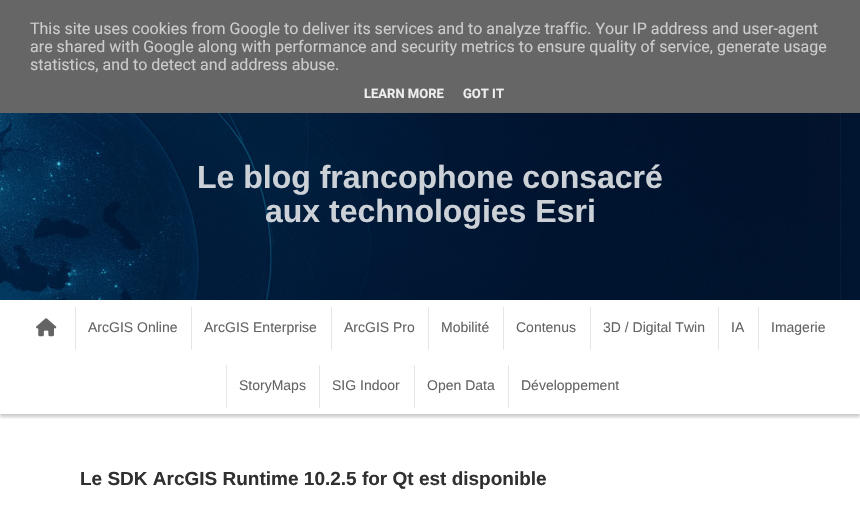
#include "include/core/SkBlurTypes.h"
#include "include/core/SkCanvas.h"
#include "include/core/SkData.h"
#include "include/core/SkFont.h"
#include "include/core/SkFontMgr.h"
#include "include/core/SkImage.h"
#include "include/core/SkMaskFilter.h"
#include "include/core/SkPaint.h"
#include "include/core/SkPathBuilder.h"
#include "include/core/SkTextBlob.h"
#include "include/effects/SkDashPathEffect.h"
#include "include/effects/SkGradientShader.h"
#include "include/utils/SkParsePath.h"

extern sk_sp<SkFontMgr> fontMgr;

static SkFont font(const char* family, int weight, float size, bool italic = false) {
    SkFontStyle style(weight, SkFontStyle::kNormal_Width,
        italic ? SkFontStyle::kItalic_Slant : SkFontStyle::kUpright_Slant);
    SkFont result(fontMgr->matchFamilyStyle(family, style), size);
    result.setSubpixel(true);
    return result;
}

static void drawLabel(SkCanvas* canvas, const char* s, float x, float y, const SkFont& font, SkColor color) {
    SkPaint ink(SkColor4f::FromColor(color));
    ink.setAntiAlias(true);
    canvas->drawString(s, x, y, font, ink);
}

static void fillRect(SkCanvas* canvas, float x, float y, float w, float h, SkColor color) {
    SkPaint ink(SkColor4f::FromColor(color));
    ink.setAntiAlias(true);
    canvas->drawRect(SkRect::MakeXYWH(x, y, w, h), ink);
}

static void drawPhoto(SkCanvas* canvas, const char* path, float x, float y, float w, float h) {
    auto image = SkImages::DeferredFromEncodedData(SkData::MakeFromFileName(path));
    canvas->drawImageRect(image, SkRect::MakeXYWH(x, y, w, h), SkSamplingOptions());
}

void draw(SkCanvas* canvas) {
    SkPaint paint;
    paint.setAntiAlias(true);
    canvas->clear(0xFFFFFFFF);
    fillRect(canvas, 0, 0, 860, 113, 0xFF666666);
    SkFont font1 = font("Roboto", 400, 16);
    drawLabel(canvas, "This site uses cookies from Google to deliver its services and to analyze traffic. Your IP address and user-agent", 30, 34, font1, 0xFFCCCCCC);
    drawLabel(canvas, "are shared with Google along with performance and security metrics to ensure quality of service, generate usage", 30, 52, font1, 0xFFCCCCCC);
    drawLabel(canvas, "statistics, and to detect and address abuse.", 30, 70, font1, 0xFFCCCCCC);
    SkFont font2 = font("Roboto", 700, 13);
    drawLabel(canvas, "LEARN MORE", 364, 98, font2, 0xFFEEEEEE);
    drawLabel(canvas, "GOT IT", 463, 98, font2, 0xFFEEEEEE);
    drawPhoto(canvas, "assets/img1.png", 0, 113, 860, 187);
    SkFont font3 = font("Liberation Sans", 700, 32);
    drawLabel(canvas, "Le blog francophone consacré", 197, 188, font3, 0xFFCCD1D7);
    drawLabel(canvas, "aux technologies Esri", 265, 222, font3, 0xFFCCD1D7);
    canvas->save();
    canvas->clipRect(SkRect::MakeXYWH(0, 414, 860, 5));
    paint.setColor(0x33000000);
    paint.setMaskFilter(SkMaskFilter::MakeBlur(kNormal_SkBlurStyle, 1.5f));
    canvas->drawRect(SkRect::MakeXYWH(0, 303, 860, 114), paint);
    paint.setMaskFilter(nullptr);
    canvas->restore();
    drawPhoto(canvas, "assets/img2.png", 36, 318, 21, 19);
    fillRect(canvas, 75, 307, 1, 43, 0xFFE6E6E6);
    SkFont font4 = font("Liberation Sans", 400, 14);
    drawLabel(canvas, "ArcGIS Online", 88, 332, font4, 0xFF646464);
    fillRect(canvas, 191, 307, 1, 43, 0xFFE6E6E6);
    drawLabel(canvas, "ArcGIS Enterprise", 204, 332, font4, 0xFF646464);
    fillRect(canvas, 331, 307, 1, 43, 0xFFE6E6E6);
    drawLabel(canvas, "ArcGIS Pro", 344, 332, font4, 0xFF646464);
    fillRect(canvas, 428, 307, 1, 43, 0xFFE6E6E6);
    drawLabel(canvas, "Mobilité", 441, 332, font4, 0xFF646464);
    fillRect(canvas, 503, 307, 1, 43, 0xFFE6E6E6);
    drawLabel(canvas, "Contenus", 516, 332, font4, 0xFF646464);
    fillRect(canvas, 590, 307, 1, 43, 0xFFE6E6E6);
    drawLabel(canvas, "3D / Digital Twin", 603, 332, font4, 0xFF646464);
    fillRect(canvas, 718, 307, 1, 43, 0xFFE6E6E6);
    drawLabel(canvas, "IA", 731, 332, font4, 0xFF646464);
    fillRect(canvas, 758, 307, 1, 43, 0xFFE6E6E6);
    drawLabel(canvas, "Imagerie", 771, 332, font4, 0xFF646464);
    fillRect(canvas, 226, 365, 1, 43, 0xFFE6E6E6);
    drawLabel(canvas, "StoryMaps", 239, 390, font4, 0xFF646464);
    fillRect(canvas, 319, 365, 1, 43, 0xFFE6E6E6);
    drawLabel(canvas, "SIG Indoor", 332, 390, font4, 0xFF646464);
    fillRect(canvas, 414, 365, 1, 43, 0xFFE6E6E6);
    drawLabel(canvas, "Open Data", 427, 390, font4, 0xFF646464);
    fillRect(canvas, 508, 365, 1, 43, 0xFFE6E6E6);
    drawLabel(canvas, "Développement", 521, 390, font4, 0xFF646464);
    SkFont font5 = font("Liberation Sans", 700, 19);
    drawLabel(canvas, "Le SDK ArcGIS Runtime 10.2.5 for Qt est disponible", 80, 485, font5, 0xFF303030);
}
